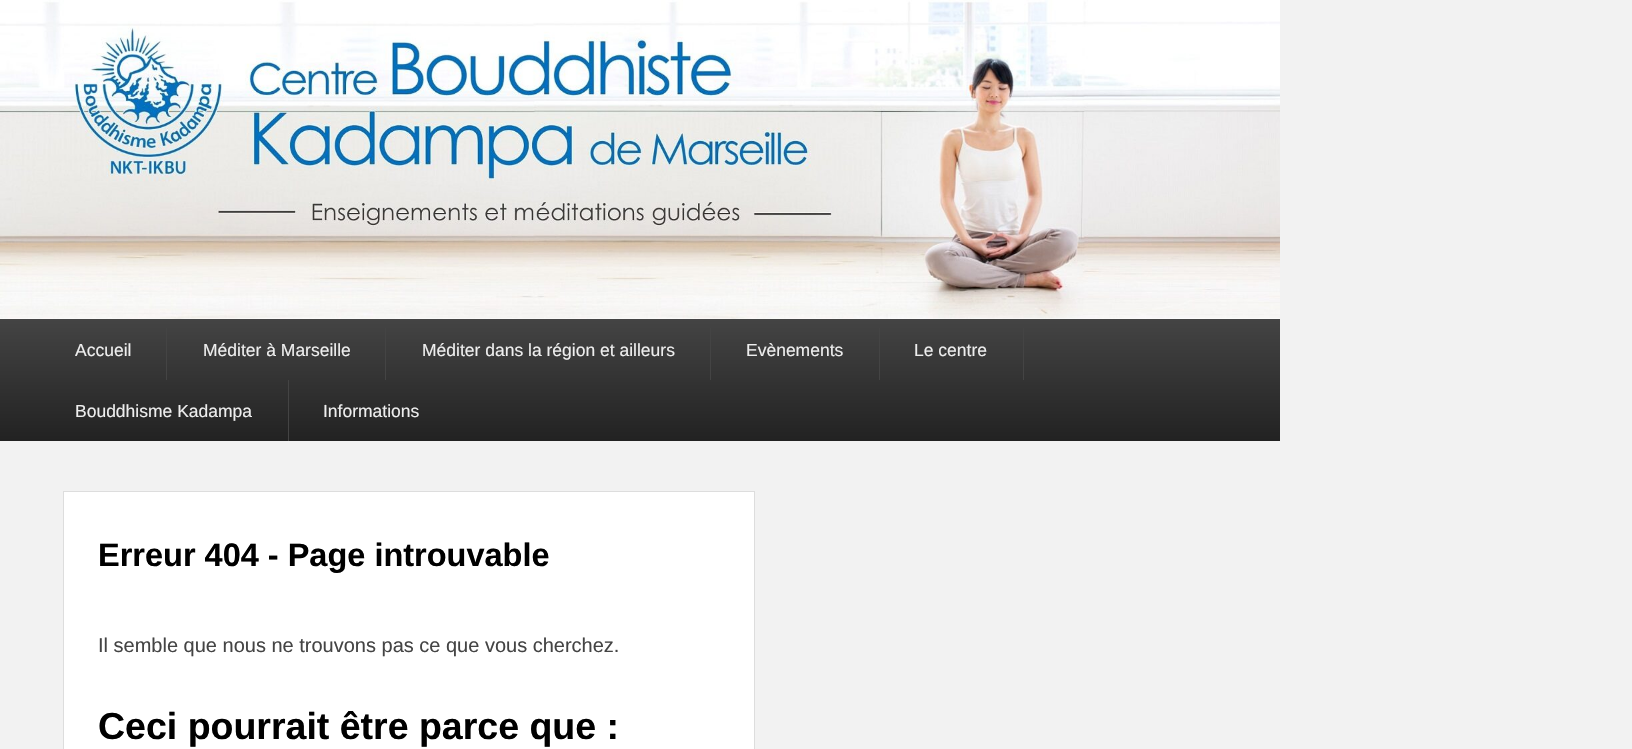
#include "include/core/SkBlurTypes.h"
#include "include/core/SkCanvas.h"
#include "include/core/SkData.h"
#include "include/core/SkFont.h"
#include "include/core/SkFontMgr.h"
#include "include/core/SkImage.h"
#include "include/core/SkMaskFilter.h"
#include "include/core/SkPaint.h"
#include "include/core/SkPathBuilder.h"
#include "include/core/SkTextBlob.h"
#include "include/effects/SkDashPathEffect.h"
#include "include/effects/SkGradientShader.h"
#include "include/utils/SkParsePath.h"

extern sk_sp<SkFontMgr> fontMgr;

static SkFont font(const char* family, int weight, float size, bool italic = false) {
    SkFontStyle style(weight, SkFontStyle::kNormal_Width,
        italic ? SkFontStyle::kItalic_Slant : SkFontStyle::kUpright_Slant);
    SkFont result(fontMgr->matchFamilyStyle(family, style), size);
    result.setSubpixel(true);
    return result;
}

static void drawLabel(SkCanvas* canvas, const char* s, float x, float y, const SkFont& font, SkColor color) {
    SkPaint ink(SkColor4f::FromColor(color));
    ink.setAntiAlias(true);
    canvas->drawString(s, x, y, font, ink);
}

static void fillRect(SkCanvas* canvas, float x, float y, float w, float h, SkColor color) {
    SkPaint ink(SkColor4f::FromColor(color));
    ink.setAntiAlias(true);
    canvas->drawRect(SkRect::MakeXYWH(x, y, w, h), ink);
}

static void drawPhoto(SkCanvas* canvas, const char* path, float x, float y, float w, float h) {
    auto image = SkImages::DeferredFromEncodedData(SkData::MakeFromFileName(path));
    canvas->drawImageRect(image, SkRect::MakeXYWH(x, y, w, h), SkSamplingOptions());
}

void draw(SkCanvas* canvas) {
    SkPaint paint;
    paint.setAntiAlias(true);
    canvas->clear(0xFFF2F2F2);
    fillRect(canvas, 0, 318, 1280, 1, 0xFFFFFFFF);
    drawPhoto(canvas, "assets/img1.png", 0, 0, 1280, 319);
    {
        const SkColor colors[] = {0xFF444444, 0xFF222222};
        const float stops[] = {0, 1};
        const SkPoint ends[] = {{640, 319}, {640, 441}};
        paint.setShader(SkGradientShader::MakeLinear(ends, colors, stops, 2, SkTileMode::kClamp));
        paint.setAlpha(255);
    }
    canvas->drawRect(SkRect::MakeXYWH(0, 319, 1280, 122), paint);
    fillRect(canvas, 166, 328, 1, 52, 0xFF444444);
    SkFont font1 = font("Liberation Sans", 400, 17.5f);
    drawLabel(canvas, "Accueil", 75, 356, font1, 0xFFEEEEEE);
    fillRect(canvas, 385, 328, 1, 52, 0xFF444444);
    drawLabel(canvas, "Méditer à Marseille", 203, 356, font1, 0xFFEEEEEE);
    fillRect(canvas, 710, 328, 1, 52, 0xFF444444);
    drawLabel(canvas, "Méditer dans la région et ailleurs", 422, 356, font1, 0xFFEEEEEE);
    fillRect(canvas, 879, 328, 1, 52, 0xFF444444);
    drawLabel(canvas, "Evènements", 746, 356, font1, 0xFFEEEEEE);
    fillRect(canvas, 1023, 328, 1, 52, 0xFF444444);
    drawLabel(canvas, "Le centre", 914, 356, font1, 0xFFEEEEEE);
    fillRect(canvas, 288, 380, 1, 61, 0xFF444444);
    drawLabel(canvas, "Bouddhisme Kadampa", 75, 417, font1, 0xFFEEEEEE);
    drawLabel(canvas, "Informations", 323, 417, font1, 0xFFEEEEEE);
    paint.setShader(nullptr);
    paint.setColor(0xFFFFFFFF);
    canvas->drawRect(SkRect::MakeXYWH(63.5f, 491.5f, 691, 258), paint);
    paint.setStroke(true);
    paint.setStrokeWidth(1);
    paint.setColor(0xFFDDDDDD);
    canvas->drawRect(SkRect::MakeXYWH(63.5f, 491.5f, 691, 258), paint);
    SkFont font2 = font("Liberation Sans", 700, 32.5f);
    drawLabel(canvas, "Erreur 404 - Page introuvable", 98, 566, font2, 0xFF000000);
    SkFont font3 = font("Liberation Sans", 400, 20);
    drawLabel(canvas, "Il semble que nous ne trouvons pas ce que vous cherchez.", 98, 652, font3, 0xFF444444);
    SkFont font4 = font("Liberation Sans", 700, 37.5f);
    drawLabel(canvas, "Ceci pourrait être parce que :", 98, 739, font4, 0xFF000000);
}
